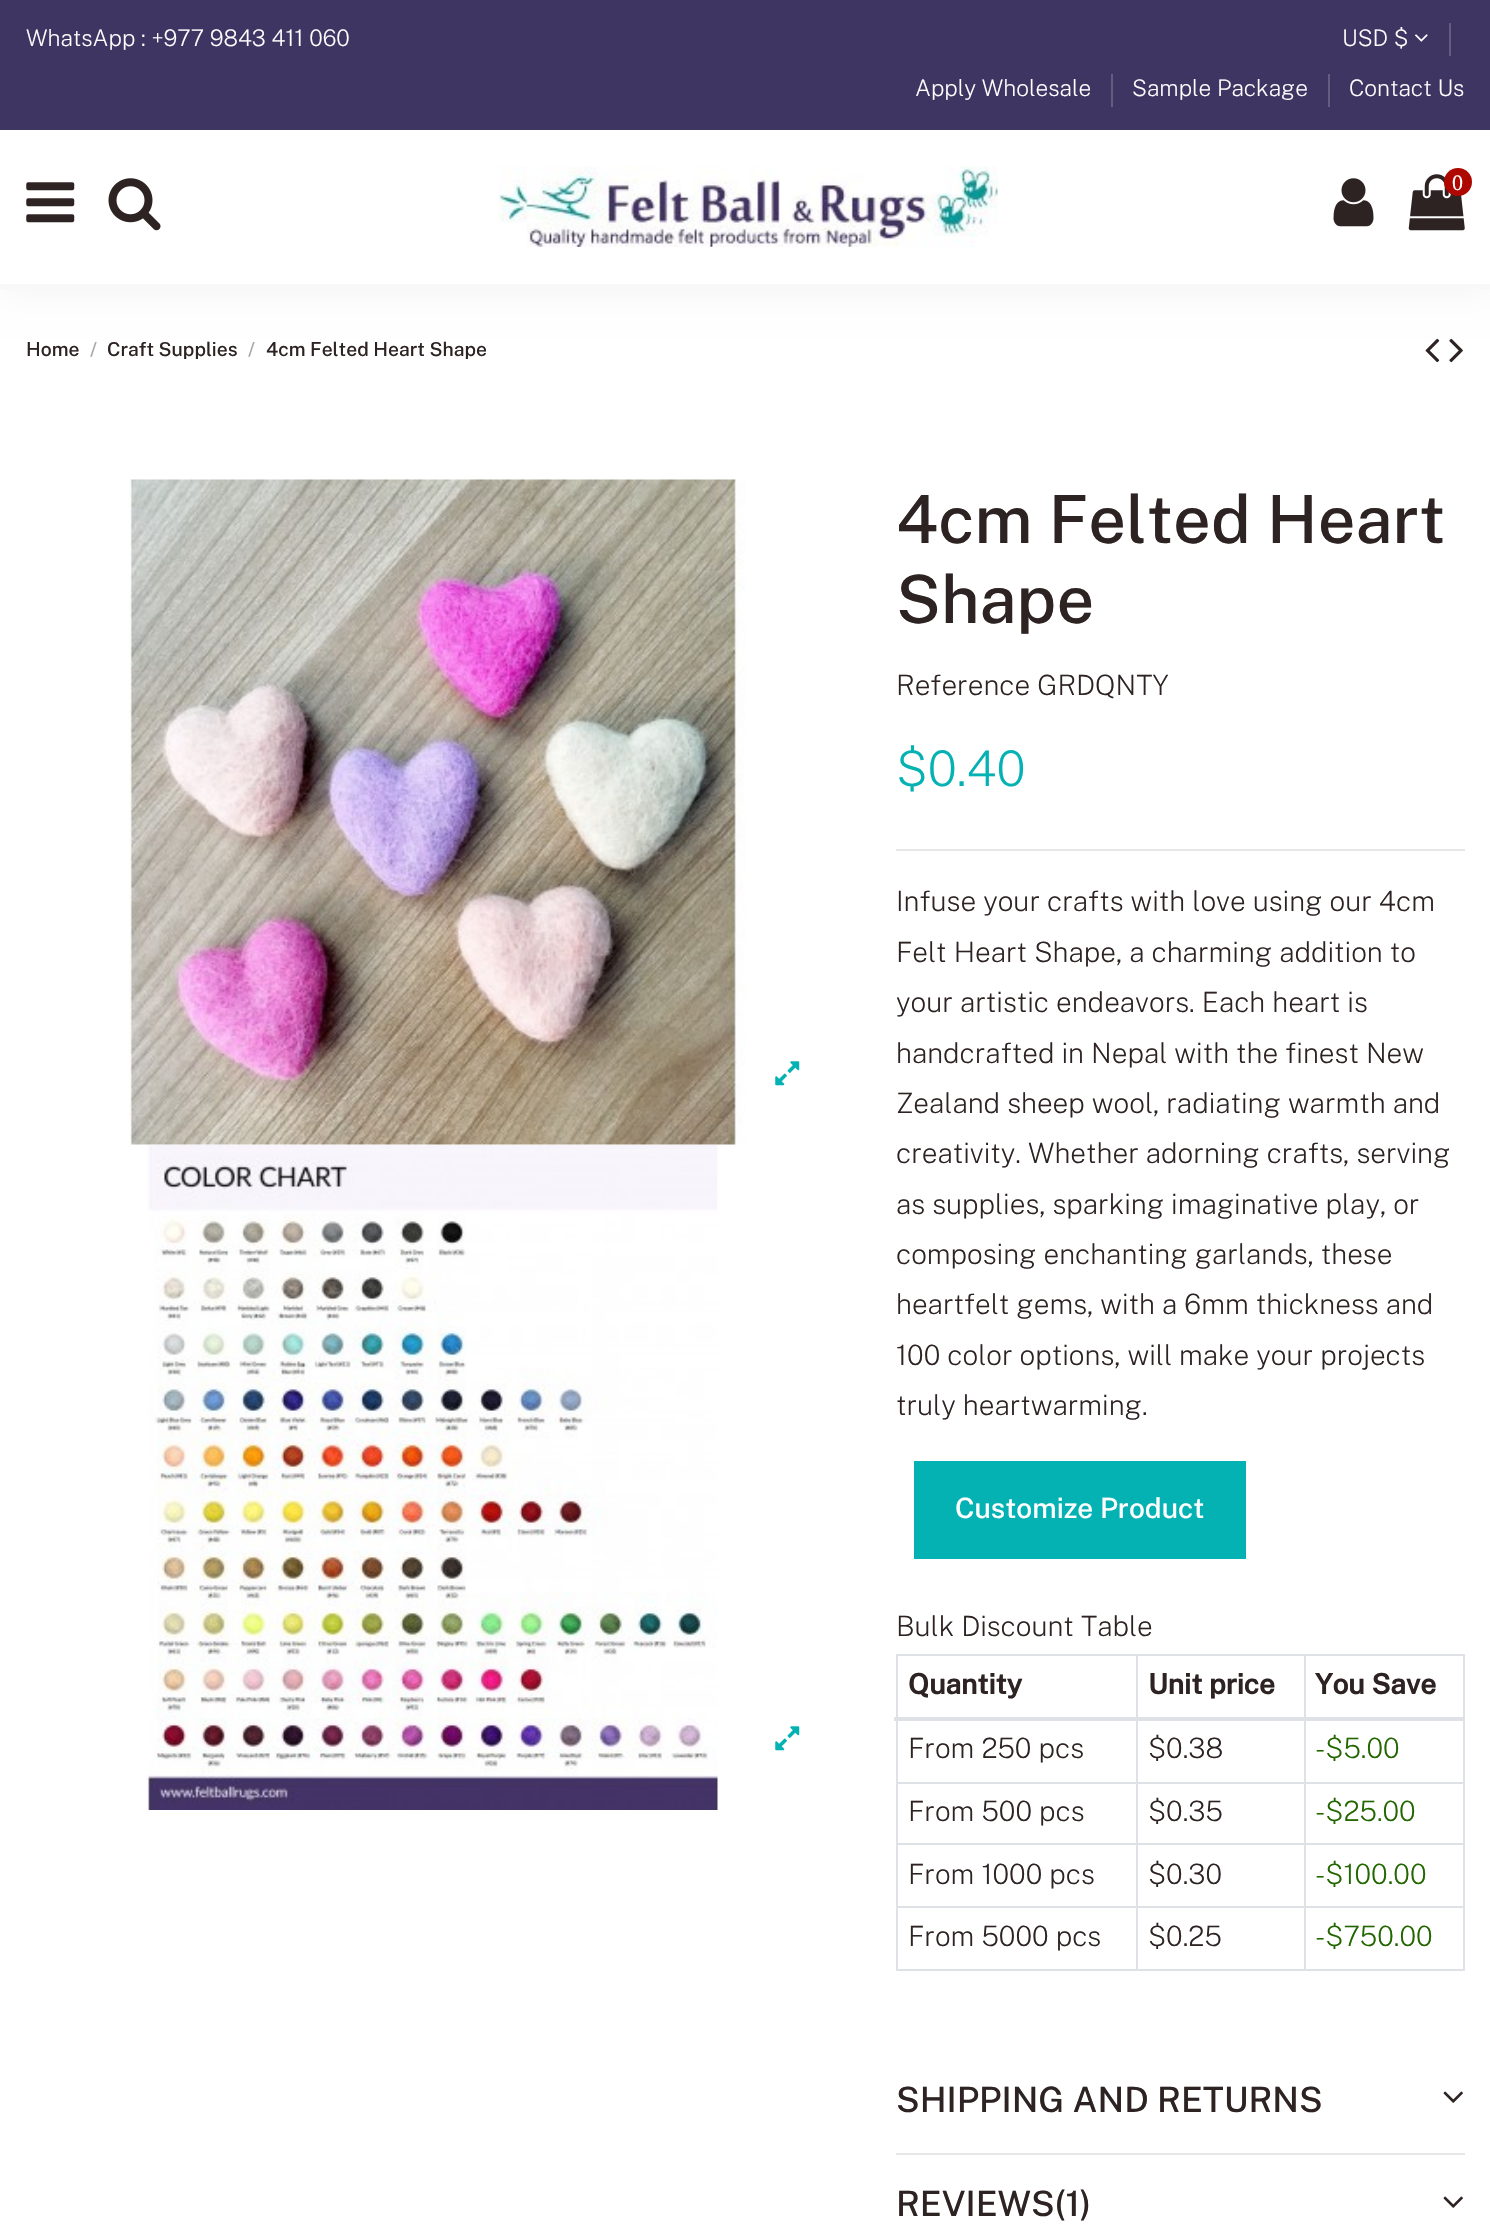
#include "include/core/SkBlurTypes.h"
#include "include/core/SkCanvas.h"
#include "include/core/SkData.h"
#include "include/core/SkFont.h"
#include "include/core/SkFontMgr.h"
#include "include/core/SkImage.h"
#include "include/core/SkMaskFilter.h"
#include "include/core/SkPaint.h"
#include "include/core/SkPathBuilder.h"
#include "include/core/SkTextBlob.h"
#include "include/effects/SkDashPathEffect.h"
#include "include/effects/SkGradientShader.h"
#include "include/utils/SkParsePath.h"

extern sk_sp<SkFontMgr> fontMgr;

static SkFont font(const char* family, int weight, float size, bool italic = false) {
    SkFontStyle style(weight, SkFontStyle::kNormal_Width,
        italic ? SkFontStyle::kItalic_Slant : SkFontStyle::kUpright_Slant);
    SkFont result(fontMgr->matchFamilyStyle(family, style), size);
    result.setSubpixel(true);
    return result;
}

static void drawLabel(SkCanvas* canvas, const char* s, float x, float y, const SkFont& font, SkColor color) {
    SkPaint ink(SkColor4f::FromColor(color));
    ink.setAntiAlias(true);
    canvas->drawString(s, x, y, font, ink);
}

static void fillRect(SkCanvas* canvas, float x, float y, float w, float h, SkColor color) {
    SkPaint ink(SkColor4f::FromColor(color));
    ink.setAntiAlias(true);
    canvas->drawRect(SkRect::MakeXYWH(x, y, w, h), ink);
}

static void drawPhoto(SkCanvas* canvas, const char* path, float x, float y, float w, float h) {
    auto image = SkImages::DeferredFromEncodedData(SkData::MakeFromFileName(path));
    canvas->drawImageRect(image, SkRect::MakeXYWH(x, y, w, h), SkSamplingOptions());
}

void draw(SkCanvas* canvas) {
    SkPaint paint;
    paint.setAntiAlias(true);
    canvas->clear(0xFFFFFFFF);
    drawPhoto(canvas, "assets/img7.png", 1425, 338, 15, 25);
    drawPhoto(canvas, "assets/img8.png", 1449, 338, 14, 25);
    paint.setColor(0x0D000000);
    paint.setMaskFilter(SkMaskFilter::MakeBlur(kNormal_SkBlurStyle, 17.5f));
    canvas->drawRect(SkRect::MakeXYWH(0, 0, 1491, 289), paint);
    paint.setMaskFilter(nullptr);
    fillRect(canvas, 0, 130, 1490, 154, 0xFFFFFFFF);
    fillRect(canvas, 0, 284, 1490, 5, 0xFFF8F8F8);
    fillRect(canvas, 0, 0, 1490, 130, 0xFF3F3562);
    SkFont font1 = font("Public Sans", 200, 22.75f);
    drawLabel(canvas, "WhatsApp : +977 9843 411 060", 26, 46, font1, 0xFFFFFFFF);
    drawLabel(canvas, "USD $", 1342, 46, font1, 0xFFFFFFFF);
    drawPhoto(canvas, "assets/img1.png", 1415, 34, 13, 8);
    fillRect(canvas, 1449, 23, 2, 33, 0xFF655D81);
    drawLabel(canvas, "Apply Wholesale", 915, 96, font1, 0xFFFFFFFF);
    fillRect(canvas, 1111, 74, 2, 33, 0xFF655D81);
    drawLabel(canvas, "Sample Package", 1132, 96, font1, 0xFFFFFFFF);
    fillRect(canvas, 1328, 74, 2, 33, 0xFF655D81);
    drawLabel(canvas, "Contact Us", 1349, 96, font1, 0xFFFFFFFF);
    drawPhoto(canvas, "assets/img2.png", 26, 182, 49, 41);
    drawPhoto(canvas, "assets/img3.png", 108, 178, 53, 53);
    drawPhoto(canvas, "assets/img4.png", 498, 166, 500, 81);
    drawPhoto(canvas, "assets/img5.png", 1333, 178, 41, 49);
    drawPhoto(canvas, "assets/img6.png", 1408, 174, 57, 57);
    paint.setColor(0xFFAD0700);
    canvas->drawCircle(1458, 182, 14, paint);
    SkFont font2 = font("Liberation Serif", 400, 22);
    drawLabel(canvas, "0", 1452, 190, font2, 0xFFFFFFFF);
    SkFont font3 = font("Public Sans", 500, 19.25f);
    drawLabel(canvas, "Home", 26, 356, font3, 0xFF2E2323);
    drawLabel(canvas, "/", 90, 356, font3, 0xFFABA7A7);
    drawLabel(canvas, "Craft Supplies", 107, 356, font3, 0xFF2E2323);
    drawLabel(canvas, "/", 248, 356, font3, 0xFFABA7A7);
    drawLabel(canvas, "4cm Felted Heart Shape", 266, 356, font3, 0xFF2E2323);
    drawPhoto(canvas, "assets/img9.png", 129, 479, 616, 666);
    drawPhoto(canvas, "assets/img10.png", 775, 1061, 25, 25);
    drawPhoto(canvas, "assets/img11.png", 146, 1145, 572, 665);
    drawPhoto(canvas, "assets/img10.png", 775, 1726, 25, 25);
    fillRect(canvas, 896, 849, 569, 2, 0xFFE7E7E7);
    SkFont font4 = font("Public Sans", 500, 66.5f);
    drawLabel(canvas, "4cm Felted Heart", 896, 543, font4, 0xFF2E2323);
    drawLabel(canvas, "Shape", 896, 623, font4, 0xFF2E2323);
    SkFont font5 = font("Public Sans", 200, 28);
    drawLabel(canvas, "Reference GRDQNTY", 896, 695, font5, 0xFF2E2323);
    SkFont font6 = font("Public Sans", 200, 49);
    drawLabel(canvas, "$0.40", 896, 786, font6, 0xFF04B2B3);
    drawLabel(canvas, "Infuse your crafts with love using our 4cm", 896, 911, font5, 0xFF2E2323);
    drawLabel(canvas, "Felt Heart Shape, a charming addition to", 896, 962, font5, 0xFF2E2323);
    drawLabel(canvas, "your artistic endeavors. Each heart is", 896, 1012, font5, 0xFF2E2323);
    drawLabel(canvas, "handcrafted in Nepal with the finest New", 896, 1063, font5, 0xFF2E2323);
    drawLabel(canvas, "Zealand sheep wool, radiating warmth and", 896, 1113, font5, 0xFF2E2323);
    drawLabel(canvas, "creativity. Whether adorning crafts, serving", 896, 1163, font5, 0xFF2E2323);
    drawLabel(canvas, "as supplies, sparking imaginative play, or", 896, 1214, font5, 0xFF2E2323);
    drawLabel(canvas, "composing enchanting garlands, these", 896, 1264, font5, 0xFF2E2323);
    drawLabel(canvas, "heartfelt gems, with a 6mm thickness and", 896, 1314, font5, 0xFF2E2323);
    drawLabel(canvas, "100 color options, will make your projects", 896, 1365, font5, 0xFF2E2323);
    drawLabel(canvas, "truly heartwarming.", 896, 1415, font5, 0xFF2E2323);
    fillRect(canvas, 914, 1461, 332, 98, 0xFF04B2B3);
    SkFont font7 = font("Public Sans", 500, 28);
    drawLabel(canvas, "Customize Product", 955, 1518, font7, 0xFFFFFFFF);
    drawLabel(canvas, "Bulk Discount Table", 896, 1636, font5, 0xFF2E2323);
    fillRect(canvas, 896, 1654, 569, 2, 0xFFDEE2E6);
    fillRect(canvas, 1463, 1654, 2, 317, 0xFFDEE2E6);
    fillRect(canvas, 896, 1969, 569, 2, 0xFFDEE2E6);
    fillRect(canvas, 896, 1654, 2, 317, 0xFFDEE2E6);
    SkFont font8 = font("Public Sans", 700, 28);
    drawLabel(canvas, "Quantity", 908, 1694, font8, 0xFF2E2323);
    drawLabel(canvas, "Unit price", 1148, 1694, font8, 0xFF2E2323);
    fillRect(canvas, 1304, 1782, 161, 2, 0xFFDEE2E6);
    fillRect(canvas, 1304, 1843, 161, 2, 0xFFDEE2E6);
    fillRect(canvas, 1304, 1906, 161, 2, 0xFFDEE2E6);
    fillRect(canvas, 1304, 1906, 2, 65, 0xFFDEE2E6);
    fillRect(canvas, 1136, 1906, 170, 2, 0xFFDEE2E6);
    fillRect(canvas, 1304, 1843, 2, 65, 0xFFDEE2E6);
    fillRect(canvas, 1136, 1843, 170, 2, 0xFFDEE2E6);
    fillRect(canvas, 1304, 1782, 2, 63, 0xFFDEE2E6);
    fillRect(canvas, 1136, 1782, 170, 2, 0xFFDEE2E6);
    fillRect(canvas, 1136, 1906, 2, 65, 0xFFDEE2E6);
    fillRect(canvas, 896, 1906, 242, 2, 0xFFDEE2E6);
    fillRect(canvas, 1136, 1843, 2, 65, 0xFFDEE2E6);
    fillRect(canvas, 896, 1843, 242, 2, 0xFFDEE2E6);
    fillRect(canvas, 1136, 1782, 2, 63, 0xFFDEE2E6);
    fillRect(canvas, 896, 1782, 242, 2, 0xFFDEE2E6);
    fillRect(canvas, 1136, 1654, 2, 129, 0xFFDEE2E6);
    fillRect(canvas, 1304, 1654, 2, 129, 0xFFDEE2E6);
    fillRect(canvas, 894, 1717, 571, 4, 0xFFDEE2E6);
    drawLabel(canvas, "You Save", 1315, 1694, font8, 0xFF2E2323);
    drawLabel(canvas, "From 250 pcs", 908, 1758, font5, 0xFF2E2323);
    drawLabel(canvas, "$0.38", 1148, 1758, font5, 0xFF2E2323);
    drawLabel(canvas, "-$5.00", 1315, 1758, font5, 0xFF226600);
    drawLabel(canvas, "From 500 pcs", 908, 1821, font5, 0xFF2E2323);
    drawLabel(canvas, "$0.35", 1148, 1821, font5, 0xFF2E2323);
    drawLabel(canvas, "-$25.00", 1315, 1821, font5, 0xFF226600);
    drawLabel(canvas, "From 1000 pcs", 908, 1884, font5, 0xFF2E2323);
    drawLabel(canvas, "$0.30", 1148, 1884, font5, 0xFF2E2323);
    drawLabel(canvas, "-$100.00", 1315, 1884, font5, 0xFF226600);
    drawLabel(canvas, "From 5000 pcs", 908, 1946, font5, 0xFF2E2323);
    drawLabel(canvas, "$0.25", 1148, 1946, font5, 0xFF2E2323);
    drawLabel(canvas, "-$750.00", 1315, 1946, font5, 0xFF226600);
    fillRect(canvas, 896, 2153, 569, 2, 0xFFE7E7E7);
    SkFont font9 = font("Public Sans", 500, 35);
    drawLabel(canvas, "SHIPPING AND RETURNS", 896, 2112, font9, 0xFF2E2323);
    drawPhoto(canvas, "assets/img12.png", 1443, 2091, 20, 12);
    drawLabel(canvas, "REVIEWS(1)", 896, 2216, font9, 0xFF2E2323);
    drawPhoto(canvas, "assets/img12.png", 1443, 2196, 20, 12);
}
